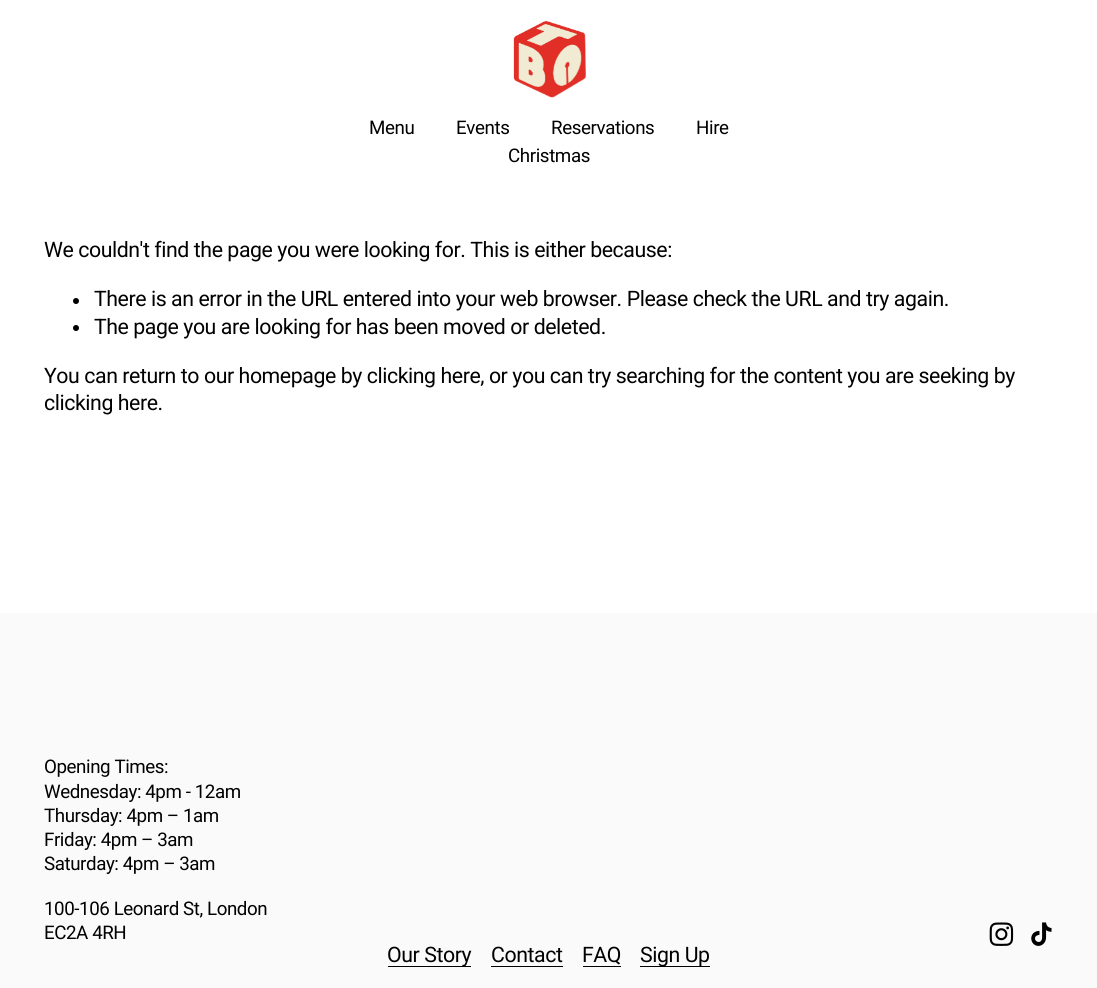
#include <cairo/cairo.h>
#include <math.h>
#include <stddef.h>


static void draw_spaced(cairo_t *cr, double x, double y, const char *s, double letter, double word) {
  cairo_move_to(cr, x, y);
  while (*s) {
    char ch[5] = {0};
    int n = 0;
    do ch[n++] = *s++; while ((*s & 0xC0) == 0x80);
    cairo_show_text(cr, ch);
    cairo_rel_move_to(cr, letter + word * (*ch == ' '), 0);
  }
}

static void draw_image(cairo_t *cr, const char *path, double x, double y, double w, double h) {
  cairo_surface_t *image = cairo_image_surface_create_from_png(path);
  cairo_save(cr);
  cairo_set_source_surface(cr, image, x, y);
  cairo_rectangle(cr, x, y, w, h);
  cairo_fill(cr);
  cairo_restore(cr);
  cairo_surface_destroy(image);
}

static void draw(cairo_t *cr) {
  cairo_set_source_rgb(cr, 1, 1, 1);
  cairo_paint(cr);
  draw_image(cr, "images/1.png", 513, 21, 73, 77);
  cairo_set_source_rgb(cr, 0, 0, 0);
  cairo_arc(cr, 76, 301, 3, 0, 2 * M_PI);
  cairo_fill(cr);
  cairo_arc(cr, 76, 328, 3, 0, 2 * M_PI);
  cairo_fill(cr);
  cairo_set_source_rgb(cr, 250 / 255.0, 250 / 255.0, 250 / 255.0);
  cairo_rectangle(cr, 0, 613, 1097, 375);
  cairo_fill(cr);
  draw_image(cr, "images/2.png", 989, 922, 25, 24);
  draw_image(cr, "images/3.png", 1031, 922, 21, 24);
  cairo_set_source_rgb(cr, 0, 0, 0);
  cairo_rectangle(cr, 388, 966, 83, 1);
  cairo_fill(cr);
  cairo_rectangle(cr, 491, 966, 72, 1);
  cairo_fill(cr);
  cairo_rectangle(cr, 583, 966, 38, 1);
  cairo_fill(cr);
  cairo_rectangle(cr, 640, 966, 70, 1);
  cairo_fill(cr);
  cairo_select_font_face(cr, "Roboto", CAIRO_FONT_SLANT_NORMAL, CAIRO_FONT_WEIGHT_NORMAL);
  cairo_set_font_size(cr, 18.75);
  draw_spaced(cr, 369, 134, "Menu", -0.4, 0);
  draw_spaced(cr, 456, 134, "Events", -0.4, 0);
  draw_spaced(cr, 551, 134, "Reservations", -0.4, 0);
  draw_spaced(cr, 696, 134, "Hire", -0.4, 0);
  draw_spaced(cr, 508, 162, "Christmas", -0.4, 0);
  cairo_set_font_size(cr, 21.3);
  draw_spaced(cr, 44, 257, "We couldn't find the page you were looking for. This is either because:", -0.43, 0);
  draw_spaced(cr, 94, 306, "There is an error in the URL entered into your web browser. Please check the URL and try again.", -0.43, 0);
  draw_spaced(cr, 94, 334, "The page you are looking for has been moved or deleted.", -0.43, 0);
  draw_spaced(cr, 44, 383, "You can return to our homepage by clicking here, or you can try searching for the content you are seeking by", -0.43, 0);
  draw_spaced(cr, 44, 410, "clicking here.", -0.43, 0);
  cairo_set_font_size(cr, 18.75);
  draw_spaced(cr, 44, 773, "Opening Times:", -0.43, 0);
  draw_spaced(cr, 44, 798, "Wednesday: 4pm - 12am", -0.43, 0);
  draw_spaced(cr, 44, 822, "Thursday: 4pm – 1am", -0.43, 0);
  draw_spaced(cr, 44, 846, "Friday: 4pm – 3am", -0.43, 0);
  draw_spaced(cr, 44, 870, "Saturday: 4pm – 3am", -0.43, 0);
  draw_spaced(cr, 44, 915, "100-106 Leonard St, London", -0.43, 0);
  draw_spaced(cr, 44, 939, "EC2A 4RH", -0.43, 0);
  cairo_set_font_size(cr, 21.3);
  draw_spaced(cr, 387, 962, "Our Story", -0.43, 0);
  draw_spaced(cr, 491, 962, "Contact", -0.43, 0);
  draw_spaced(cr, 582, 962, "FAQ", -0.43, 0);
  draw_spaced(cr, 640, 962, "Sign Up", -0.43, 0);
}

int main(void) {
  cairo_surface_t *surface = cairo_image_surface_create(CAIRO_FORMAT_RGB24, 1097, 988);
  cairo_t *cr = cairo_create(surface);
  cairo_font_options_t *options = cairo_font_options_create();
  cairo_font_options_set_hint_metrics(options, CAIRO_HINT_METRICS_OFF);
  cairo_font_options_set_hint_style(options, CAIRO_HINT_STYLE_NONE);
  cairo_set_font_options(cr, options);
  cairo_set_miter_limit(cr, 4);
  draw(cr);
  cairo_surface_write_to_png(surface, "out.png");
  cairo_font_options_destroy(options);
  cairo_destroy(cr);
  cairo_surface_destroy(surface);
  return 0;
}
